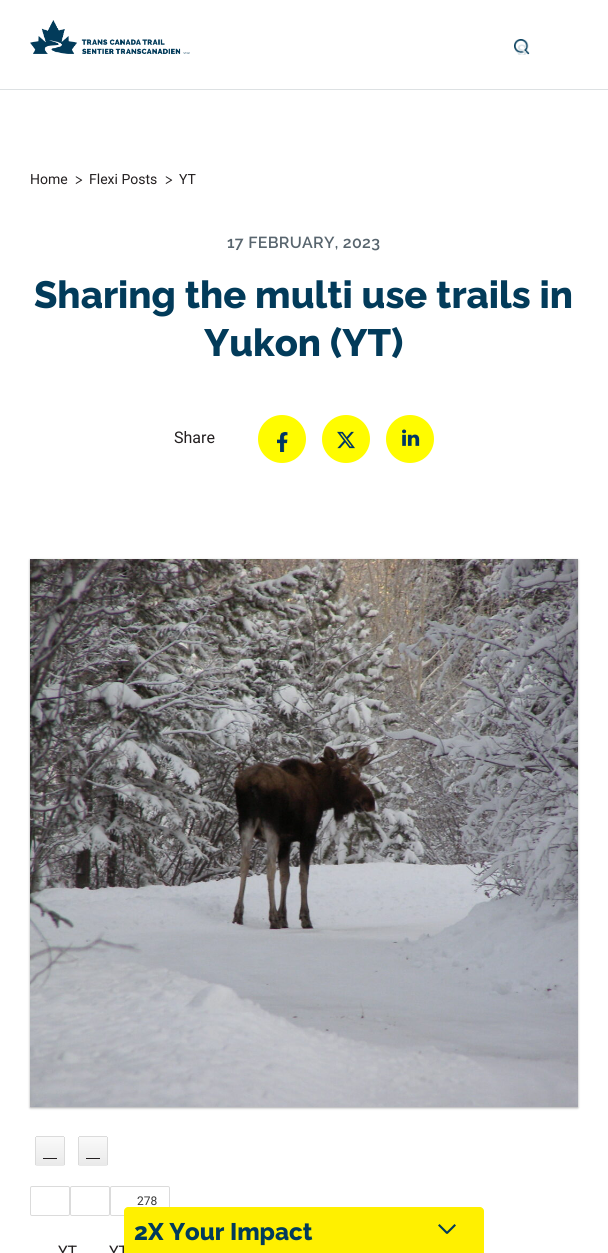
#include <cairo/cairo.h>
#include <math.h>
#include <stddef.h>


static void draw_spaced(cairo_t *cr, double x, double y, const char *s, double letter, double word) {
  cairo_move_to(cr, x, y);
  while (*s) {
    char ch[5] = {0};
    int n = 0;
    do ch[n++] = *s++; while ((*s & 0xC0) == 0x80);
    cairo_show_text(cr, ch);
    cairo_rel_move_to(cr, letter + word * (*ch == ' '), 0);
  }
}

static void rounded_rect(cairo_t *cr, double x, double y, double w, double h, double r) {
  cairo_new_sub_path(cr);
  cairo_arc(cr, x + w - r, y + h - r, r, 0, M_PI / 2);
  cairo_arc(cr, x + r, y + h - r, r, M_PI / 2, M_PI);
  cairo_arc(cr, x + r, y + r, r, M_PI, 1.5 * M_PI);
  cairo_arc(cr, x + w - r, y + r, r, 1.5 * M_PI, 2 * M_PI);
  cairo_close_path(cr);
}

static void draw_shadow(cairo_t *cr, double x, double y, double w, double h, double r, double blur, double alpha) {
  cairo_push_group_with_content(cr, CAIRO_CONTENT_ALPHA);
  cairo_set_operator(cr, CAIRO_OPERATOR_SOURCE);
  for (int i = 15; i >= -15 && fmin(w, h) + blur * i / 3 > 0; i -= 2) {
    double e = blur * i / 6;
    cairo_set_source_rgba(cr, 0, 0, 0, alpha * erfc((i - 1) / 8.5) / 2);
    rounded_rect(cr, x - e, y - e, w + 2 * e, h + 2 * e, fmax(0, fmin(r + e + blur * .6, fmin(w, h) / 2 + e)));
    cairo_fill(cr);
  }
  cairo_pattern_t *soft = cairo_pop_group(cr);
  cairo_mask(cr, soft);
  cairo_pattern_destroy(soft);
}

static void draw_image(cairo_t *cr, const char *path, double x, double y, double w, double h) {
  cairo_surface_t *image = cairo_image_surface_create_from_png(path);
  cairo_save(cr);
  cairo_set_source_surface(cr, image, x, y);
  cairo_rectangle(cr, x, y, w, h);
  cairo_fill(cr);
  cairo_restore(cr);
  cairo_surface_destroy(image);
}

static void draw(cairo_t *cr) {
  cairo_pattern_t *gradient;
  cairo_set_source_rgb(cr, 1, 1, 1);
  cairo_paint(cr);
  cairo_set_source_rgb(cr, 221 / 255.0, 225 / 255.0, 227 / 255.0);
  cairo_rectangle(cr, 0, 89, 608, 1);
  cairo_fill(cr);
  draw_image(cr, "images/1.png", 30, 20, 160, 34);
  draw_image(cr, "images/2.png", 514, 39, 16, 16);
  cairo_set_source_rgb(cr, 1, 252 / 255.0, 0);
  cairo_arc(cr, 282, 439, 24, 0, 2 * M_PI);
  cairo_fill(cr);
  draw_image(cr, "images/3.png", 277, 432, 11, 20);
  cairo_arc(cr, 346, 439, 24, 0, 2 * M_PI);
  cairo_fill(cr);
  draw_image(cr, "images/4.png", 337, 431, 18, 18);
  cairo_arc(cr, 410, 439, 24, 0, 2 * M_PI);
  cairo_fill(cr);
  draw_image(cr, "images/5.png", 402, 429, 18, 17);
  cairo_set_source_rgb(cr, 0, 0, 0);
  draw_shadow(cr, 30, 560, 548, 548, 0, 1, 0.24);
  draw_shadow(cr, 30, 560, 548, 548, 0, 1.5, 0.12);
  draw_image(cr, "images/6.png", 30, 559, 548, 548);
  cairo_save(cr);
  rounded_rect(cr, 35, 1136, 30, 30, 2);
  cairo_clip(cr);
  gradient = cairo_pattern_create_linear(50, 1137, 50, 1166);
  cairo_pattern_add_color_stop_rgba(gradient, 0.05, 249 / 255.0, 249 / 255.0, 249 / 255.0, 1);
  cairo_pattern_add_color_stop_rgba(gradient, 1, 233 / 255.0, 233 / 255.0, 233 / 255.0, 1);
  cairo_set_source(cr, gradient);
  cairo_pattern_destroy(gradient);
  cairo_new_path(cr);
  cairo_move_to(cr, 35, 1137);
  cairo_line_to(cr, 65, 1137);
  cairo_line_to(cr, 65, 1164);
  cairo_curve_to(cr, 65, 1165, 64, 1166, 63, 1166);
  cairo_line_to(cr, 37, 1166);
  cairo_curve_to(cr, 36, 1166, 35, 1165, 35, 1164);
  cairo_close_path(cr);
  cairo_fill(cr);
  cairo_restore(cr);
  cairo_set_source_rgb(cr, 219 / 255.0, 219 / 255.0, 219 / 255.0);
  cairo_rectangle(cr, 36, 1136, 28, 1);
  cairo_fill(cr);
  cairo_rectangle(cr, 64, 1137, 1, 28);
  cairo_fill(cr);
  cairo_rectangle(cr, 35, 1137, 1, 28);
  cairo_fill(cr);
  cairo_set_source_rgb(cr, 35 / 255.0, 31 / 255.0, 32 / 255.0);
  cairo_rectangle(cr, 43, 1158, 14, 1);
  cairo_fill(cr);
  cairo_save(cr);
  rounded_rect(cr, 78, 1136, 30, 30, 2);
  cairo_clip(cr);
  gradient = cairo_pattern_create_linear(93, 1137, 93, 1166);
  cairo_pattern_add_color_stop_rgba(gradient, 0.05, 249 / 255.0, 249 / 255.0, 249 / 255.0, 1);
  cairo_pattern_add_color_stop_rgba(gradient, 1, 233 / 255.0, 233 / 255.0, 233 / 255.0, 1);
  cairo_set_source(cr, gradient);
  cairo_pattern_destroy(gradient);
  cairo_new_path(cr);
  cairo_move_to(cr, 78, 1137);
  cairo_line_to(cr, 108, 1137);
  cairo_line_to(cr, 108, 1164);
  cairo_curve_to(cr, 108, 1165, 107, 1166, 106, 1166);
  cairo_line_to(cr, 80, 1166);
  cairo_curve_to(cr, 79, 1166, 78, 1165, 78, 1164);
  cairo_close_path(cr);
  cairo_fill(cr);
  cairo_restore(cr);
  cairo_set_source_rgb(cr, 219 / 255.0, 219 / 255.0, 219 / 255.0);
  cairo_rectangle(cr, 79, 1136, 28, 1);
  cairo_fill(cr);
  cairo_rectangle(cr, 107, 1137, 1, 28);
  cairo_fill(cr);
  cairo_rectangle(cr, 78, 1137, 1, 28);
  cairo_fill(cr);
  cairo_set_source_rgb(cr, 35 / 255.0, 31 / 255.0, 32 / 255.0);
  cairo_rectangle(cr, 86, 1158, 14, 1);
  cairo_fill(cr);
  rounded_rect(cr, 30.5, 1186.5, 39, 29, 1.5);
  cairo_set_source_rgb(cr, 219 / 255.0, 219 / 255.0, 219 / 255.0);
  cairo_set_line_width(cr, 1);
  cairo_stroke(cr);
  rounded_rect(cr, 70.5, 1186.5, 39, 29, 1.5);
  cairo_stroke(cr);
  rounded_rect(cr, 110.5, 1186.5, 59, 29, 1.5);
  cairo_stroke(cr);
  cairo_save(cr);
  rounded_rect(cr, 514, 39, 16, 16, 4);
  cairo_clip(cr);
  cairo_select_font_face(cr, "Roboto Medium", CAIRO_FONT_SLANT_NORMAL, CAIRO_FONT_WEIGHT_NORMAL);
  cairo_set_font_size(cr, 16);
  cairo_set_source_rgb(cr, 219 / 255.0, 227 / 255.0, 231 / 255.0);
  cairo_move_to(cr, 517, 56);
  cairo_show_text(cr, "S");
  cairo_restore(cr);
  cairo_select_font_face(cr, "Roboto", CAIRO_FONT_SLANT_NORMAL, CAIRO_FONT_WEIGHT_NORMAL);
  cairo_set_font_size(cr, 14);
  cairo_set_source_rgb(cr, 35 / 255.0, 31 / 255.0, 32 / 255.0);
  cairo_move_to(cr, 30, 184);
  cairo_show_text(cr, "Home");
  cairo_select_font_face(cr, "Raleway", CAIRO_FONT_SLANT_NORMAL, CAIRO_FONT_WEIGHT_NORMAL);
  cairo_set_font_size(cr, 15);
  cairo_move_to(cr, 75, 184);
  cairo_show_text(cr, ">");
  cairo_select_font_face(cr, "Roboto", CAIRO_FONT_SLANT_NORMAL, CAIRO_FONT_WEIGHT_NORMAL);
  cairo_set_font_size(cr, 14);
  cairo_move_to(cr, 89, 184);
  cairo_show_text(cr, "Flexi Posts");
  cairo_select_font_face(cr, "Raleway", CAIRO_FONT_SLANT_NORMAL, CAIRO_FONT_WEIGHT_NORMAL);
  cairo_set_font_size(cr, 15);
  cairo_move_to(cr, 165, 184);
  cairo_show_text(cr, ">");
  cairo_select_font_face(cr, "Roboto", CAIRO_FONT_SLANT_NORMAL, CAIRO_FONT_WEIGHT_NORMAL);
  cairo_set_font_size(cr, 14);
  cairo_move_to(cr, 179, 184);
  cairo_show_text(cr, "YT");
  cairo_select_font_face(cr, "Raleway SemiBold", CAIRO_FONT_SLANT_NORMAL, CAIRO_FONT_WEIGHT_NORMAL);
  cairo_set_font_size(cr, 16);
  cairo_set_source_rgb(cr, 88 / 255.0, 101 / 255.0, 110 / 255.0);
  draw_spaced(cr, 227, 248, "17 FEBRUARY, 2023", 0.3, 0);
  cairo_select_font_face(cr, "Raleway ExtraBold", CAIRO_FONT_SLANT_NORMAL, CAIRO_FONT_WEIGHT_NORMAL);
  cairo_set_font_size(cr, 38);
  cairo_set_source_rgb(cr, 2 / 255.0, 59 / 255.0, 90 / 255.0);
  cairo_move_to(cr, 34, 308);
  cairo_show_text(cr, "Sharing the multi use trails in");
  cairo_move_to(cr, 204, 356);
  cairo_show_text(cr, "Yukon (YT)");
  cairo_select_font_face(cr, "Roboto", CAIRO_FONT_SLANT_NORMAL, CAIRO_FONT_WEIGHT_NORMAL);
  cairo_set_font_size(cr, 16);
  cairo_set_source_rgb(cr, 35 / 255.0, 31 / 255.0, 32 / 255.0);
  cairo_move_to(cr, 174, 443);
  cairo_show_text(cr, "Share");
  cairo_set_font_size(cr, 12);
  cairo_set_source_rgb(cr, 54 / 255.0, 54 / 255.0, 54 / 255.0);
  cairo_move_to(cr, 137, 1205);
  cairo_show_text(cr, "278");
  cairo_set_font_size(cr, 16);
  cairo_set_source_rgb(cr, 35 / 255.0, 31 / 255.0, 32 / 255.0);
  cairo_move_to(cr, 58, 1257);
  cairo_show_text(cr, "YT");
  cairo_move_to(cr, 109, 1257);
  cairo_show_text(cr, "YT");
  cairo_set_source_rgb(cr, 1, 240 / 255.0, 0);
  cairo_new_path(cr);
  cairo_move_to(cr, 128, 1207);
  cairo_line_to(cr, 480, 1207);
  cairo_curve_to(cr, 482, 1207, 484, 1209, 484, 1211);
  cairo_line_to(cr, 484, 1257);
  cairo_line_to(cr, 124, 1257);
  cairo_line_to(cr, 124, 1211);
  cairo_curve_to(cr, 124, 1209, 126, 1207, 128, 1207);
  cairo_close_path(cr);
  cairo_fill(cr);
  cairo_select_font_face(cr, "Raleway ExtraBold", CAIRO_FONT_SLANT_NORMAL, CAIRO_FONT_WEIGHT_NORMAL);
  cairo_set_font_size(cr, 24);
  cairo_set_source_rgb(cr, 2 / 255.0, 59 / 255.0, 90 / 255.0);
  cairo_move_to(cr, 134, 1240);
  cairo_show_text(cr, "2X Your Impact");
  cairo_new_path(cr);
  cairo_move_to(cr, 439.5, 1224);
  cairo_line_to(cr, 448, 1232.5);
  cairo_line_to(cr, 446.5, 1234);
  cairo_line_to(cr, 438, 1225.5);
  cairo_close_path(cr);
  cairo_fill(cr);
  cairo_new_path(cr);
  cairo_move_to(cr, 446, 1232.5);
  cairo_line_to(cr, 454.5, 1224);
  cairo_line_to(cr, 456, 1225.5);
  cairo_line_to(cr, 447.5, 1234);
  cairo_close_path(cr);
  cairo_fill(cr);
}

int main(void) {
  cairo_surface_t *surface = cairo_image_surface_create(CAIRO_FORMAT_RGB24, 608, 1253);
  cairo_t *cr = cairo_create(surface);
  cairo_font_options_t *options = cairo_font_options_create();
  cairo_font_options_set_hint_metrics(options, CAIRO_HINT_METRICS_OFF);
  cairo_font_options_set_hint_style(options, CAIRO_HINT_STYLE_NONE);
  cairo_set_font_options(cr, options);
  cairo_set_miter_limit(cr, 4);
  draw(cr);
  cairo_surface_write_to_png(surface, "out.png");
  cairo_font_options_destroy(options);
  cairo_destroy(cr);
  cairo_surface_destroy(surface);
  return 0;
}
